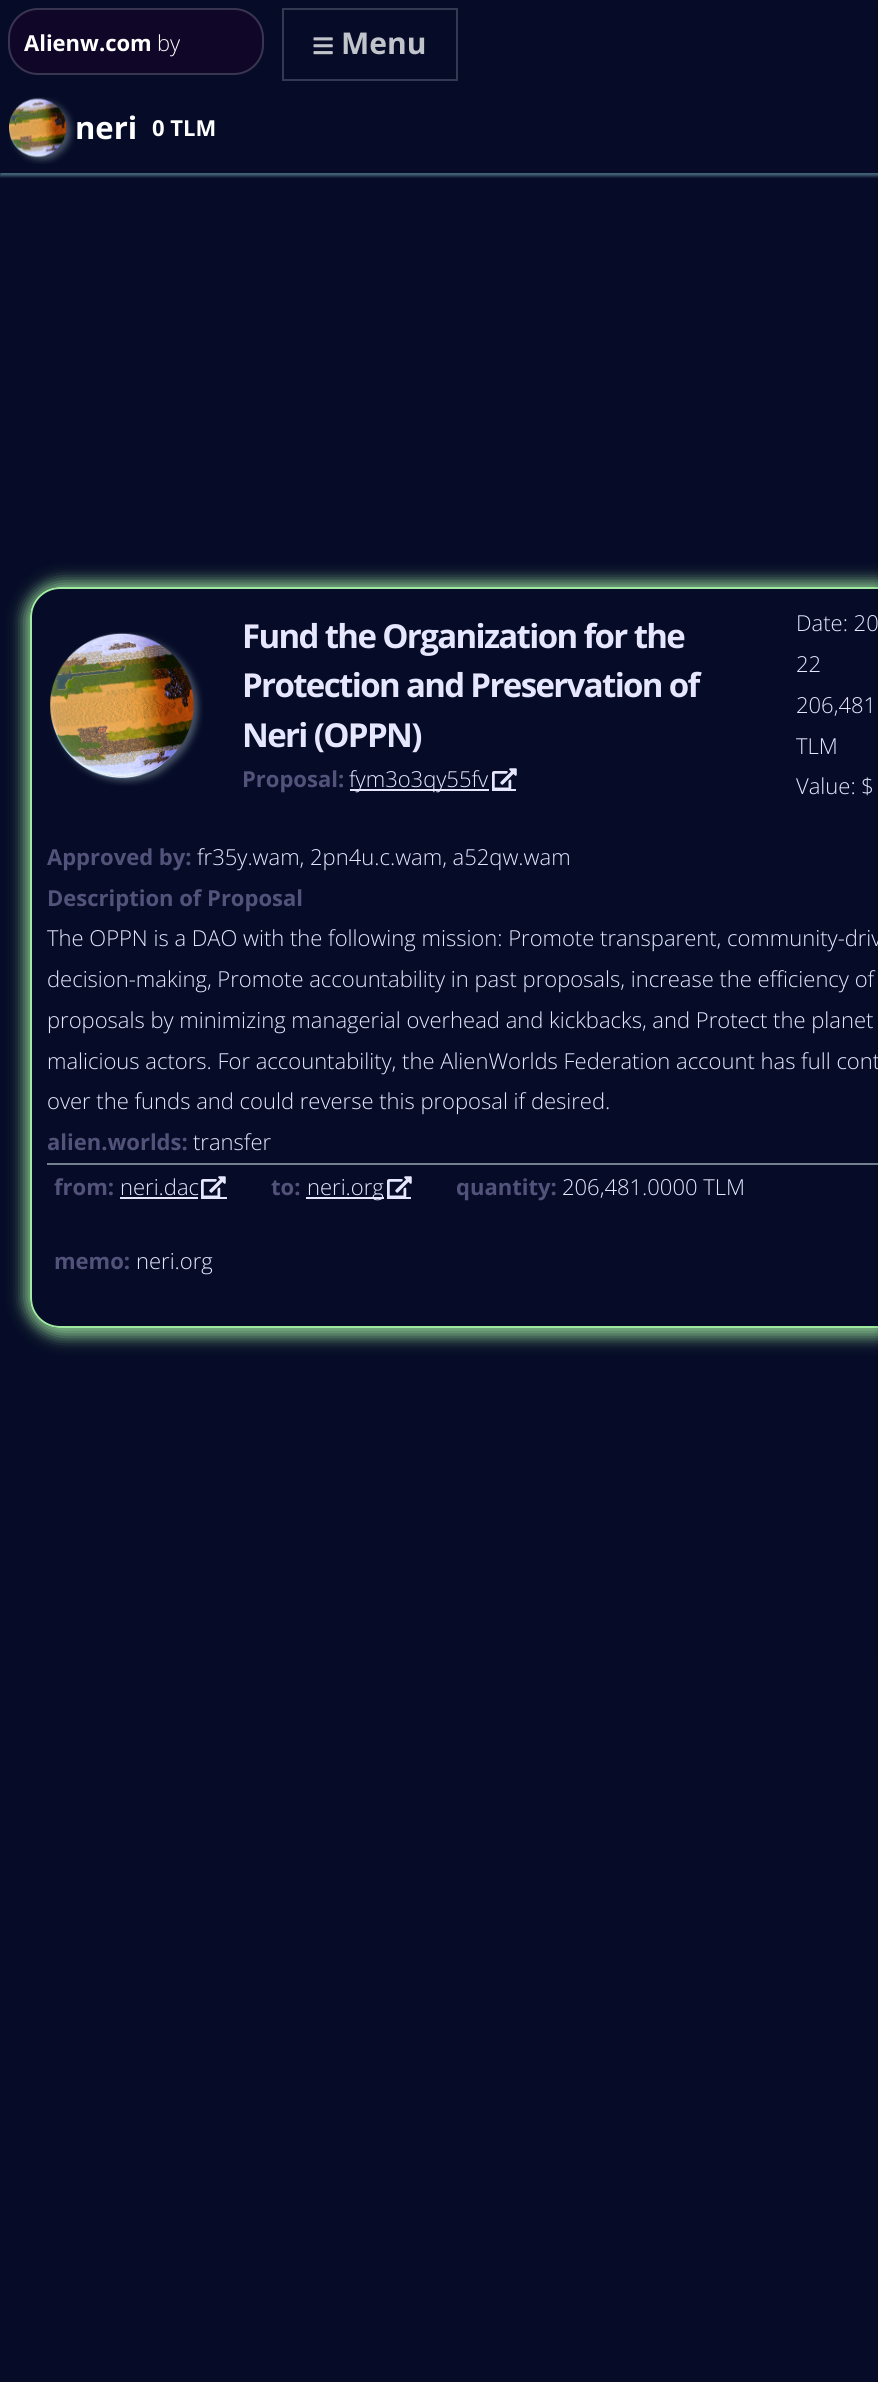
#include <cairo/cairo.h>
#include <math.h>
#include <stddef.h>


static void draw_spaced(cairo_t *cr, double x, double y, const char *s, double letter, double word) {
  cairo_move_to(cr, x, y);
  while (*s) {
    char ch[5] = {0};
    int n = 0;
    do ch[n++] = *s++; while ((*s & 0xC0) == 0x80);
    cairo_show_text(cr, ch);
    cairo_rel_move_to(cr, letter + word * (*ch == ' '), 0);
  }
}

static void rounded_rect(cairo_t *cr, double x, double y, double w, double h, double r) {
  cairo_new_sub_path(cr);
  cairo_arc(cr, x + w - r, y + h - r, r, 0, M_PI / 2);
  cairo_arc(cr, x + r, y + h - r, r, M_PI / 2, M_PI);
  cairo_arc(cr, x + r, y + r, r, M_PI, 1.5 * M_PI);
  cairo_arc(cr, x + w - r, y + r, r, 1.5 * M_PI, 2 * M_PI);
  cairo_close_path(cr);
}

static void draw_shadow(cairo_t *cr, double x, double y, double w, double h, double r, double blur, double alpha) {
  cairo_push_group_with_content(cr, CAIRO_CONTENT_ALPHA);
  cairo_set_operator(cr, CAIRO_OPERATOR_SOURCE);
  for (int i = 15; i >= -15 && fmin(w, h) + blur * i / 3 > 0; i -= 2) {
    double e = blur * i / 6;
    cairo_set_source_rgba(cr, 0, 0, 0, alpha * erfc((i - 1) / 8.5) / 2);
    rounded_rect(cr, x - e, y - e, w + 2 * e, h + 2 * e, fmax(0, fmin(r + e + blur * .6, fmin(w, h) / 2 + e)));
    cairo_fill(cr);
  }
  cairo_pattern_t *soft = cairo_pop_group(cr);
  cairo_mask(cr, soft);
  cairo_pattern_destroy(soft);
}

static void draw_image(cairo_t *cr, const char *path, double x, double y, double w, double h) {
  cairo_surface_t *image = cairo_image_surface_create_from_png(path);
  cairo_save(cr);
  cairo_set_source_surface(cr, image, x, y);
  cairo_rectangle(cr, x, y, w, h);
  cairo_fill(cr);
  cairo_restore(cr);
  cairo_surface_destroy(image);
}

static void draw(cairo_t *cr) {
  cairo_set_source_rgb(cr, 6 / 255.0, 12 / 255.0, 39 / 255.0);
  cairo_paint(cr);
  cairo_save(cr);
  cairo_rectangle(cr, 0, 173, 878, 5);
  cairo_clip(cr);
  cairo_set_source_rgb(cr, 165 / 255.0, 236 / 255.0, 248 / 255.0);
  draw_shadow(cr, 0, 0, 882, 176, 0, 1.5, 0.4);
  cairo_restore(cr);
  cairo_set_source_rgb(cr, 16 / 255.0, 6 / 255.0, 39 / 255.0);
  rounded_rect(cr, 8, 8, 256, 67, 30);
  cairo_fill(cr);
  rounded_rect(cr, 9, 9, 254, 65, 29);
  cairo_set_source_rgba(cr, 221 / 255.0, 244 / 255.0, 248 / 255.0, 0.2);
  cairo_stroke(cr);
  cairo_rectangle(cr, 283, 9, 174, 71);
  cairo_set_source_rgb(cr, 49 / 255.0, 58 / 255.0, 81 / 255.0);
  cairo_stroke(cr);
  draw_image(cr, "images/1.png", 313, 37, 20, 18);
  cairo_set_source_rgb(cr, 6 / 255.0, 12 / 255.0, 39 / 255.0);
  cairo_rectangle(cr, 0, 172, 878, 1);
  cairo_fill(cr);
  cairo_save(cr);
  cairo_set_fill_rule(cr, CAIRO_FILL_RULE_EVEN_ODD);
  cairo_new_path(cr);
  cairo_move_to(cr, 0, 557);
  cairo_line_to(cr, 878, 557);
  cairo_line_to(cr, 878, 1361);
  cairo_line_to(cr, 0, 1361);
  cairo_close_path(cr);
  cairo_move_to(cr, 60, 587);
  cairo_line_to(cr, 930, 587);
  cairo_curve_to(cr, 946.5, 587, 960, 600.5, 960, 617);
  cairo_line_to(cr, 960, 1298);
  cairo_curve_to(cr, 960, 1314.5, 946.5, 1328, 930, 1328);
  cairo_line_to(cr, 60, 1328);
  cairo_curve_to(cr, 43.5, 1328, 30, 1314.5, 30, 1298);
  cairo_line_to(cr, 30, 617);
  cairo_curve_to(cr, 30, 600.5, 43.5, 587, 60, 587);
  cairo_close_path(cr);
  cairo_clip(cr);
  cairo_set_source_rgb(cr, 160 / 255.0, 235 / 255.0, 160 / 255.0);
  draw_shadow(cr, 24, 581, 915, 756, 38, 7.5, 0.8);
  cairo_restore(cr);
  rounded_rect(cr, 31, 588, 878, 739, 29);
  cairo_set_source_rgb(cr, 160 / 255.0, 235 / 255.0, 160 / 255.0);
  cairo_stroke(cr);
  cairo_set_source_rgb(cr, 114 / 255.0, 128 / 255.0, 144 / 255.0);
  cairo_rectangle(cr, 47, 1163, 831, 2);
  cairo_fill(cr);
  cairo_set_source_rgb(cr, 0, 0, 0);
  draw_shadow(cr, 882, 3, 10, 1658, 0, 4.5, 0.4);
  draw_image(cr, "images/2.png", 9, 97, 66, 67);
  draw_image(cr, "images/3.png", 49, 632, 154, 154);
  cairo_set_source_rgb(cr, 230 / 255.0, 230 / 255.0, 1);
  cairo_rectangle(cr, 350, 789, 139, 2);
  cairo_fill(cr);
  cairo_rectangle(cr, 492, 789, 24, 2);
  cairo_fill(cr);
  draw_image(cr, "images/4.png", 492, 768, 25, 21);
  cairo_rectangle(cr, 120, 1197, 78, 2);
  cairo_fill(cr);
  cairo_rectangle(cr, 201, 1197, 26, 2);
  cairo_fill(cr);
  draw_image(cr, "images/4.png", 201, 1176, 25, 21);
  cairo_rectangle(cr, 306, 1197, 78, 2);
  cairo_fill(cr);
  cairo_rectangle(cr, 387, 1197, 24, 2);
  cairo_fill(cr);
  draw_image(cr, "images/4.png", 387, 1176, 25, 21);
  cairo_select_font_face(cr, "Open Sans", CAIRO_FONT_SLANT_NORMAL, CAIRO_FONT_WEIGHT_BOLD);
  cairo_set_font_size(cr, 22);
  cairo_set_source_rgb(cr, 1, 1, 1);
  cairo_move_to(cr, 24, 51);
  cairo_show_text(cr, "Alienw.com");
  cairo_select_font_face(cr, "Open Sans Light", CAIRO_FONT_SLANT_NORMAL, CAIRO_FONT_WEIGHT_NORMAL);
  cairo_move_to(cr, 157, 51);
  cairo_show_text(cr, "by");
  cairo_select_font_face(cr, "Open Sans", CAIRO_FONT_SLANT_NORMAL, CAIRO_FONT_WEIGHT_BOLD);
  cairo_set_font_size(cr, 30);
  cairo_set_source_rgb(cr, 193 / 255.0, 197 / 255.0, 203 / 255.0);
  cairo_move_to(cr, 341, 54);
  cairo_show_text(cr, "Menu");
  cairo_set_font_size(cr, 31);
  cairo_set_source_rgb(cr, 1, 1, 1);
  cairo_move_to(cr, 75, 139);
  cairo_show_text(cr, "neri");
  cairo_set_font_size(cr, 22);
  cairo_move_to(cr, 152, 136);
  cairo_show_text(cr, "0 TLM");
  cairo_set_font_size(cr, 33);
  cairo_set_source_rgb(cr, 230 / 255.0, 230 / 255.0, 1);
  draw_spaced(cr, 242, 648, "Fund the Organization for the", -1.65, 0);
  draw_spaced(cr, 242, 697, "Protection and Preservation of", -1.65, 0);
  draw_spaced(cr, 242, 747, "Neri (OPPN)", -1.65, 0);
  cairo_set_font_size(cr, 22);
  cairo_set_source_rgb(cr, 82 / 255.0, 82 / 255.0, 122 / 255.0);
  cairo_move_to(cr, 242, 787);
  cairo_show_text(cr, "Proposal:");
  cairo_select_font_face(cr, "Open Sans Light", CAIRO_FONT_SLANT_NORMAL, CAIRO_FONT_WEIGHT_NORMAL);
  cairo_set_source_rgb(cr, 230 / 255.0, 230 / 255.0, 1);
  cairo_move_to(cr, 349, 787);
  cairo_show_text(cr, "fym3o3qy55fv");
  cairo_move_to(cr, 796, 631);
  cairo_show_text(cr, "Date: 20");
  cairo_move_to(cr, 796, 672);
  cairo_show_text(cr, "22");
  cairo_move_to(cr, 796, 713);
  cairo_show_text(cr, "206,481");
  cairo_move_to(cr, 796, 754);
  cairo_show_text(cr, "TLM");
  cairo_move_to(cr, 796, 794);
  cairo_show_text(cr, "Value: $");
  cairo_select_font_face(cr, "Open Sans", CAIRO_FONT_SLANT_NORMAL, CAIRO_FONT_WEIGHT_BOLD);
  cairo_set_source_rgb(cr, 82 / 255.0, 82 / 255.0, 122 / 255.0);
  cairo_move_to(cr, 47, 865);
  cairo_show_text(cr, "Approved by:");
  cairo_select_font_face(cr, "Open Sans Light", CAIRO_FONT_SLANT_NORMAL, CAIRO_FONT_WEIGHT_NORMAL);
  cairo_set_source_rgb(cr, 230 / 255.0, 230 / 255.0, 1);
  cairo_move_to(cr, 197, 865);
  cairo_show_text(cr, "fr35y.wam, 2pn4u.c.wam, a52qw.wam");
  cairo_select_font_face(cr, "Open Sans", CAIRO_FONT_SLANT_NORMAL, CAIRO_FONT_WEIGHT_BOLD);
  cairo_set_source_rgb(cr, 82 / 255.0, 82 / 255.0, 122 / 255.0);
  cairo_move_to(cr, 47, 906);
  cairo_show_text(cr, "Description of Proposal");
  cairo_select_font_face(cr, "Open Sans Light", CAIRO_FONT_SLANT_NORMAL, CAIRO_FONT_WEIGHT_NORMAL);
  cairo_set_source_rgb(cr, 230 / 255.0, 230 / 255.0, 1);
  cairo_move_to(cr, 47, 946);
  cairo_show_text(cr, "The OPPN is a DAO with the following mission: Promote transparent, community-driv");
  cairo_move_to(cr, 47, 987);
  cairo_show_text(cr, "decision-making, Promote accountability in past proposals, increase the efficiency of");
  cairo_move_to(cr, 47, 1028);
  cairo_show_text(cr, "proposals by minimizing managerial overhead and kickbacks, and Protect the planet");
  cairo_move_to(cr, 47, 1069);
  cairo_show_text(cr, "malicious actors. For accountability, the AlienWorlds Federation account has full cont");
  cairo_move_to(cr, 47, 1109);
  cairo_show_text(cr, "over the funds and could reverse this proposal if desired.");
  cairo_select_font_face(cr, "Open Sans", CAIRO_FONT_SLANT_NORMAL, CAIRO_FONT_WEIGHT_BOLD);
  cairo_set_source_rgb(cr, 82 / 255.0, 82 / 255.0, 122 / 255.0);
  cairo_move_to(cr, 47, 1150);
  cairo_show_text(cr, "alien.worlds:");
  cairo_select_font_face(cr, "Open Sans Light", CAIRO_FONT_SLANT_NORMAL, CAIRO_FONT_WEIGHT_NORMAL);
  cairo_set_source_rgb(cr, 230 / 255.0, 230 / 255.0, 1);
  cairo_move_to(cr, 193, 1150);
  cairo_show_text(cr, "transfer");
  cairo_select_font_face(cr, "Open Sans", CAIRO_FONT_SLANT_NORMAL, CAIRO_FONT_WEIGHT_BOLD);
  cairo_set_source_rgb(cr, 82 / 255.0, 82 / 255.0, 122 / 255.0);
  cairo_move_to(cr, 54, 1195);
  cairo_show_text(cr, "from:");
  cairo_select_font_face(cr, "Open Sans Light", CAIRO_FONT_SLANT_NORMAL, CAIRO_FONT_WEIGHT_NORMAL);
  cairo_set_source_rgb(cr, 230 / 255.0, 230 / 255.0, 1);
  cairo_move_to(cr, 120, 1195);
  cairo_show_text(cr, "neri.dac");
  cairo_select_font_face(cr, "Open Sans", CAIRO_FONT_SLANT_NORMAL, CAIRO_FONT_WEIGHT_BOLD);
  cairo_set_source_rgb(cr, 82 / 255.0, 82 / 255.0, 122 / 255.0);
  cairo_move_to(cr, 271, 1195);
  cairo_show_text(cr, "to:");
  cairo_select_font_face(cr, "Open Sans Light", CAIRO_FONT_SLANT_NORMAL, CAIRO_FONT_WEIGHT_NORMAL);
  cairo_set_source_rgb(cr, 230 / 255.0, 230 / 255.0, 1);
  cairo_move_to(cr, 307, 1195);
  cairo_show_text(cr, "neri.org");
  cairo_select_font_face(cr, "Open Sans", CAIRO_FONT_SLANT_NORMAL, CAIRO_FONT_WEIGHT_BOLD);
  cairo_set_source_rgb(cr, 82 / 255.0, 82 / 255.0, 122 / 255.0);
  cairo_move_to(cr, 456, 1195);
  cairo_show_text(cr, "quantity:");
  cairo_select_font_face(cr, "Open Sans Light", CAIRO_FONT_SLANT_NORMAL, CAIRO_FONT_WEIGHT_NORMAL);
  cairo_set_source_rgb(cr, 230 / 255.0, 230 / 255.0, 1);
  cairo_move_to(cr, 562, 1195);
  cairo_show_text(cr, "206,481.0000 TLM");
  cairo_select_font_face(cr, "Open Sans", CAIRO_FONT_SLANT_NORMAL, CAIRO_FONT_WEIGHT_BOLD);
  cairo_set_source_rgb(cr, 82 / 255.0, 82 / 255.0, 122 / 255.0);
  cairo_move_to(cr, 54, 1269);
  cairo_show_text(cr, "memo:");
  cairo_select_font_face(cr, "Open Sans Light", CAIRO_FONT_SLANT_NORMAL, CAIRO_FONT_WEIGHT_NORMAL);
  cairo_set_source_rgb(cr, 230 / 255.0, 230 / 255.0, 1);
  cairo_move_to(cr, 136, 1269);
  cairo_show_text(cr, "neri.org");
}

int main(void) {
  cairo_surface_t *surface = cairo_image_surface_create(CAIRO_FORMAT_RGB24, 878, 2382);
  cairo_t *cr = cairo_create(surface);
  cairo_font_options_t *options = cairo_font_options_create();
  cairo_font_options_set_hint_metrics(options, CAIRO_HINT_METRICS_OFF);
  cairo_font_options_set_hint_style(options, CAIRO_HINT_STYLE_NONE);
  cairo_set_font_options(cr, options);
  cairo_set_miter_limit(cr, 4);
  draw(cr);
  cairo_surface_write_to_png(surface, "out.png");
  cairo_font_options_destroy(options);
  cairo_destroy(cr);
  cairo_surface_destroy(surface);
  return 0;
}
